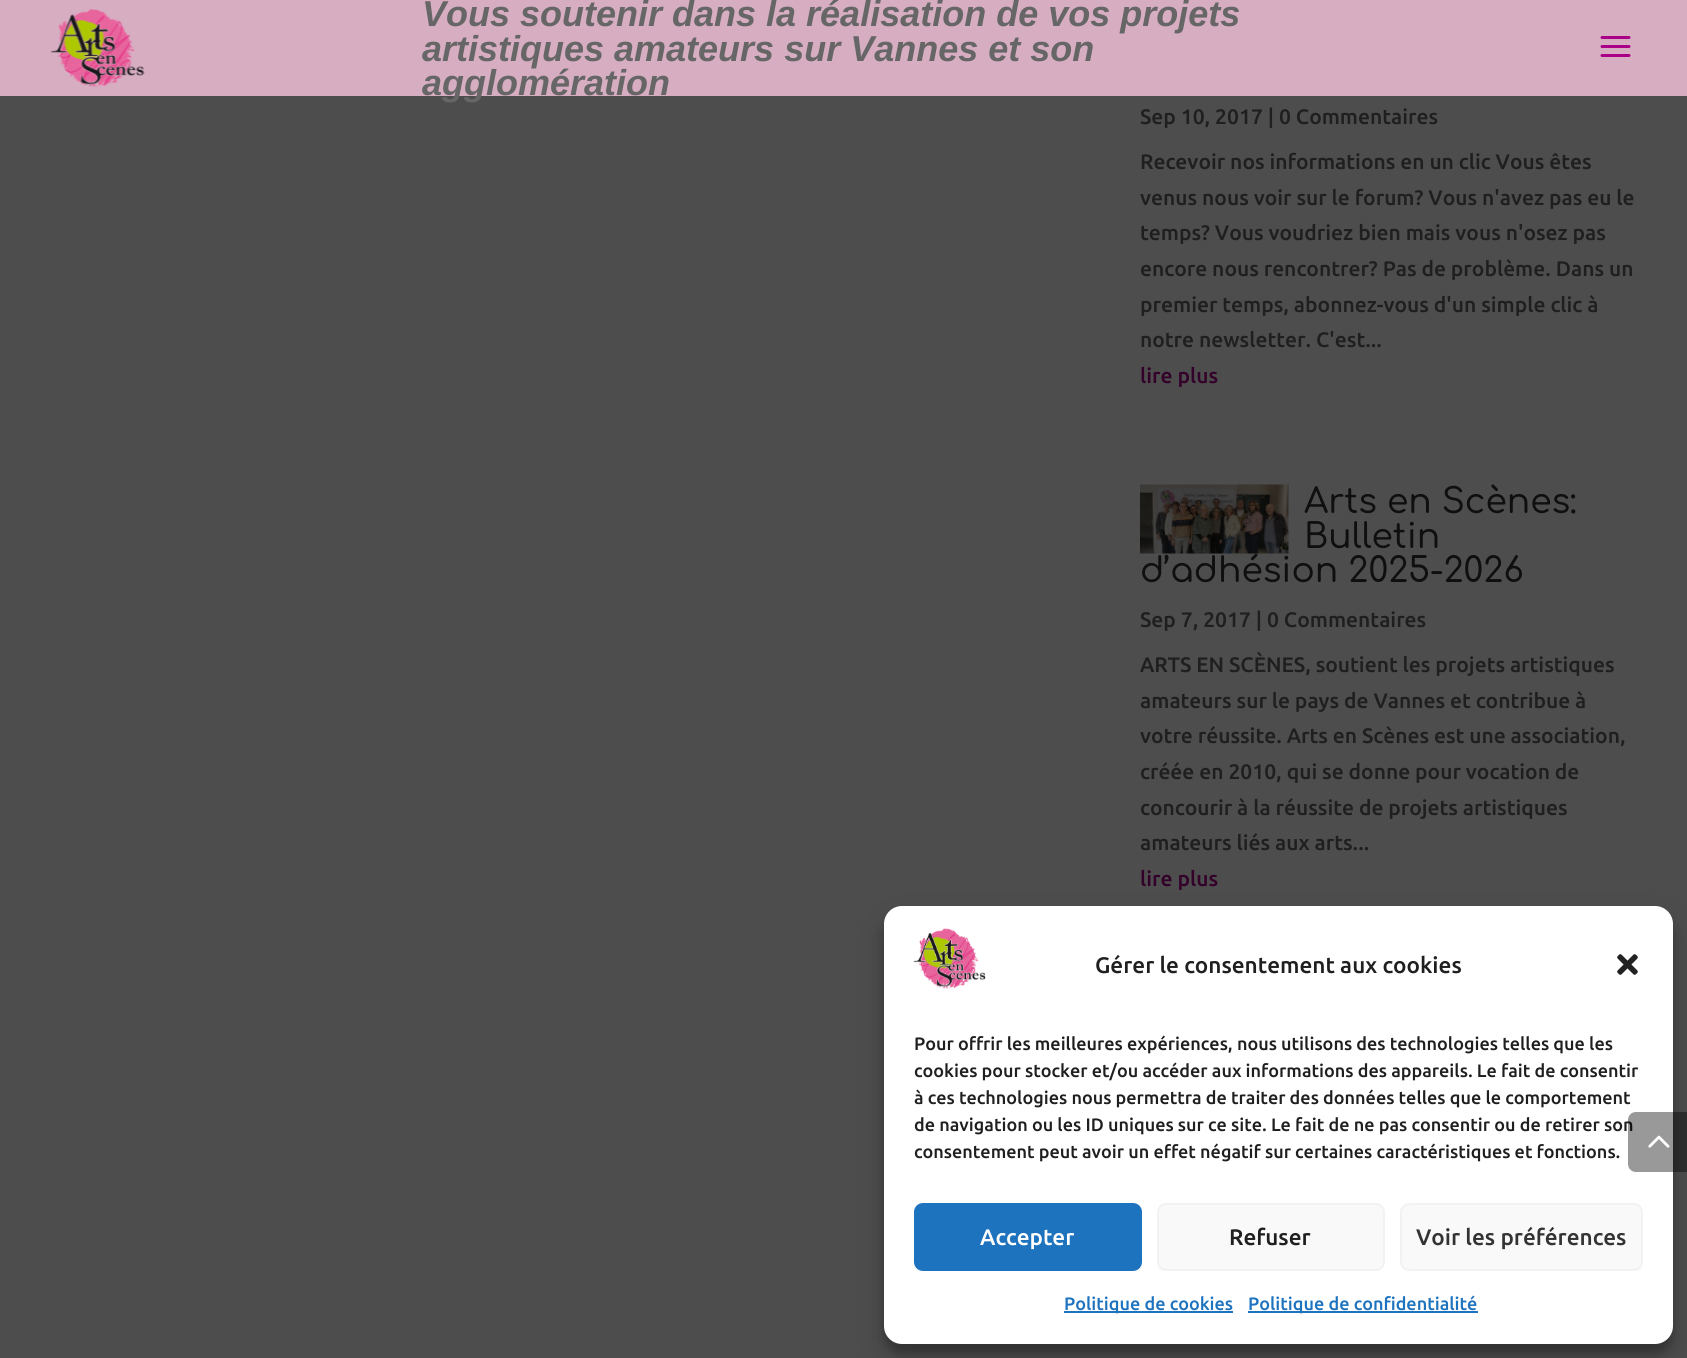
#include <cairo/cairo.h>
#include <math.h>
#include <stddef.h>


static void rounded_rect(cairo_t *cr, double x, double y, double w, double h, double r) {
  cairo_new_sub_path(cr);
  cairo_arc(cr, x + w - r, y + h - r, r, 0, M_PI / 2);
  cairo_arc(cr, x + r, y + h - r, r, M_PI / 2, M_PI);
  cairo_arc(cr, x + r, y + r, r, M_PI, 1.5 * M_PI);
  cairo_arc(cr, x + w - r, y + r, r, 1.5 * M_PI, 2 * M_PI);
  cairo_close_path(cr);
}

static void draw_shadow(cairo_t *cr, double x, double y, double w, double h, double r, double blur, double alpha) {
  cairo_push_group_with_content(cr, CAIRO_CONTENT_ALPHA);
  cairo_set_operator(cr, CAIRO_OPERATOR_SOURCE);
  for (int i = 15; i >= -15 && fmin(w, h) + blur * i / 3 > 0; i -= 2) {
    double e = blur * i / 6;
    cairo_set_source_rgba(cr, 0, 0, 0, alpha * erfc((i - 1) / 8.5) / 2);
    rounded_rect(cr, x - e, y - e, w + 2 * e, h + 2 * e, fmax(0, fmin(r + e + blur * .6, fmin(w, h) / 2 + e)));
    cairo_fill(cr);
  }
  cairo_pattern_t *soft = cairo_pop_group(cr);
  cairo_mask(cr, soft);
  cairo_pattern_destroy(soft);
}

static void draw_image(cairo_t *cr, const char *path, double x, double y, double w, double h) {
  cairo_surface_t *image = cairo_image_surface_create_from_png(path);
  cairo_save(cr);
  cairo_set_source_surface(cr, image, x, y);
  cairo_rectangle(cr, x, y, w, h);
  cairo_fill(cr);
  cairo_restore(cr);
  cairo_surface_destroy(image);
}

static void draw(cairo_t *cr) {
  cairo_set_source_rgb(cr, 77 / 255.0, 77 / 255.0, 77 / 255.0);
  cairo_paint(cr);
  cairo_set_source_rgb(cr, 215 / 255.0, 173 / 255.0, 194 / 255.0);
  cairo_rectangle(cr, 0, 0, 1687, 96);
  cairo_fill(cr);
  draw_image(cr, "images/1.png", 50, 9, 95, 78);
  draw_image(cr, "images/2.png", 1600, 36, 31, 21);
  cairo_set_source_rgb(cr, 0, 0, 0);
  draw_shadow(cr, 884, 915, 789, 438, 18, 4.5, 0.23);
  draw_shadow(cr, 884, 921, 789, 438, 18, 15, 0.19);
  cairo_set_source_rgb(cr, 1, 1, 1);
  rounded_rect(cr, 884, 906, 789, 438, 18);
  cairo_fill(cr);
  draw_image(cr, "images/5.png", 913, 928, 73, 61);
  draw_image(cr, "images/6.png", 1617, 954, 21, 21);
  cairo_set_source_rgb(cr, 30 / 255.0, 115 / 255.0, 190 / 255.0);
  rounded_rect(cr, 915, 1204, 226, 66, 8);
  cairo_fill_preserve(cr);
  cairo_stroke(cr);
  cairo_set_source_rgb(cr, 249 / 255.0, 249 / 255.0, 249 / 255.0);
  rounded_rect(cr, 1158, 1204, 226, 66, 8);
  cairo_fill_preserve(cr);
  cairo_set_source_rgb(cr, 242 / 255.0, 242 / 255.0, 242 / 255.0);
  cairo_stroke(cr);
  cairo_set_source_rgb(cr, 249 / 255.0, 249 / 255.0, 249 / 255.0);
  rounded_rect(cr, 1401, 1204, 241, 66, 8);
  cairo_fill_preserve(cr);
  cairo_set_source_rgb(cr, 242 / 255.0, 242 / 255.0, 242 / 255.0);
  cairo_stroke(cr);
  cairo_set_source_rgb(cr, 30 / 255.0, 115 / 255.0, 190 / 255.0);
  cairo_rectangle(cr, 1064, 1311, 169, 2);
  cairo_fill(cr);
  cairo_rectangle(cr, 1248, 1311, 230, 2);
  cairo_fill(cr);
  cairo_select_font_face(cr, "Arimo", CAIRO_FONT_SLANT_ITALIC, CAIRO_FONT_WEIGHT_BOLD);
  cairo_set_font_size(cr, 36);
  cairo_set_source_rgb(cr, 102 / 255.0, 102 / 255.0, 102 / 255.0);
  cairo_move_to(cr, 422, 26);
  cairo_show_text(cr, "Vous soutenir dans la réalisation de vos projets");
  cairo_move_to(cr, 422, 61);
  cairo_show_text(cr, "artistiques amateurs sur Vannes et son");
  cairo_move_to(cr, 422, 95);
  cairo_show_text(cr, "agglomération");
  cairo_select_font_face(cr, "Ubuntu Medium", CAIRO_FONT_SLANT_NORMAL, CAIRO_FONT_WEIGHT_NORMAL);
  cairo_set_font_size(cr, 21);
  cairo_set_source_rgb(cr, 31 / 255.0, 31 / 255.0, 31 / 255.0);
  cairo_move_to(cr, 1140, 124);
  cairo_show_text(cr, "Sep 10, 2017 | 0 Commentaires");
  cairo_move_to(cr, 1140, 169);
  cairo_show_text(cr, "Recevoir nos informations en un clic Vous êtes");
  cairo_move_to(cr, 1140, 205);
  cairo_show_text(cr, "venus nous voir sur le forum? Vous n'avez pas eu le");
  cairo_move_to(cr, 1140, 240);
  cairo_show_text(cr, "temps? Vous voudriez bien mais vous n'osez pas");
  cairo_move_to(cr, 1140, 276);
  cairo_show_text(cr, "encore nous rencontrer? Pas de problème. Dans un");
  cairo_move_to(cr, 1140, 312);
  cairo_show_text(cr, "premier temps, abonnez-vous d'un simple clic à");
  cairo_move_to(cr, 1140, 347);
  cairo_show_text(cr, "notre newsletter. C'est...");
  cairo_set_source_rgb(cr, 51 / 255.0, 0, 41 / 255.0);
  cairo_move_to(cr, 1140, 383);
  cairo_show_text(cr, "lire plus");
  cairo_select_font_face(cr, "Comfortaa Medium", CAIRO_FONT_SLANT_NORMAL, CAIRO_FONT_WEIGHT_NORMAL);
  cairo_set_font_size(cr, 34.5);
  cairo_set_source_rgb(cr, 15 / 255.0, 15 / 255.0, 15 / 255.0);
  cairo_move_to(cr, 1304, 513);
  cairo_show_text(cr, "Arts en Scènes:");
  cairo_move_to(cr, 1304, 548);
  cairo_show_text(cr, "Bulletin");
  cairo_move_to(cr, 1140, 582);
  cairo_show_text(cr, "d’adhésion 2025-2026");
  draw_image(cr, "images/3.png", 1140, 484, 149, 70);
  cairo_select_font_face(cr, "Ubuntu Medium", CAIRO_FONT_SLANT_NORMAL, CAIRO_FONT_WEIGHT_NORMAL);
  cairo_set_font_size(cr, 21);
  cairo_set_source_rgb(cr, 31 / 255.0, 31 / 255.0, 31 / 255.0);
  cairo_move_to(cr, 1140, 627);
  cairo_show_text(cr, "Sep 7, 2017 | 0 Commentaires");
  cairo_move_to(cr, 1140, 672);
  cairo_show_text(cr, "ARTS EN SCÈNES, soutient les projets artistiques");
  cairo_move_to(cr, 1140, 708);
  cairo_show_text(cr, "amateurs sur le pays de Vannes et contribue à");
  cairo_move_to(cr, 1140, 743);
  cairo_show_text(cr, "votre réussite. Arts en Scènes est une association,");
  cairo_move_to(cr, 1140, 779);
  cairo_show_text(cr, "créée en 2010, qui se donne pour vocation de");
  cairo_move_to(cr, 1140, 815);
  cairo_show_text(cr, "concourir à la réussite de projets artistiques");
  cairo_move_to(cr, 1140, 850);
  cairo_show_text(cr, "amateurs liés aux arts...");
  cairo_set_source_rgb(cr, 51 / 255.0, 0, 41 / 255.0);
  cairo_move_to(cr, 1140, 886);
  cairo_show_text(cr, "lire plus");
  cairo_set_font_size(cr, 22.5);
  cairo_set_source_rgb(cr, 31 / 255.0, 31 / 255.0, 31 / 255.0);
  cairo_move_to(cr, 1095, 973);
  cairo_show_text(cr, "Gérer le consentement aux cookies");
  cairo_set_font_size(cr, 18);
  cairo_move_to(cr, 914, 1050);
  cairo_show_text(cr, "Pour offrir les meilleures expériences, nous utilisons des technologies telles que les");
  cairo_move_to(cr, 914, 1077);
  cairo_show_text(cr, "cookies pour stocker et/ou accéder aux informations des appareils. Le fait de consentir");
  cairo_move_to(cr, 914, 1104);
  cairo_show_text(cr, "à ces technologies nous permettra de traiter des données telles que le comportement");
  cairo_move_to(cr, 914, 1131);
  cairo_show_text(cr, "de navigation ou les ID uniques sur ce site. Le fait de ne pas consentir ou de retirer son");
  cairo_set_source_rgba(cr, 0, 0, 0, 0.4);
  cairo_new_path(cr);
  cairo_move_to(cr, 1636, 1112);
  cairo_line_to(cr, 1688, 1112);
  cairo_line_to(cr, 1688, 1172);
  cairo_line_to(cr, 1636, 1172);
  cairo_curve_to(cr, 1631.5, 1172, 1628, 1168.5, 1628, 1164);
  cairo_line_to(cr, 1628, 1120);
  cairo_curve_to(cr, 1628, 1115.5, 1631.5, 1112, 1636, 1112);
  cairo_close_path(cr);
  cairo_fill(cr);
  draw_image(cr, "images/4.png", 1648, 1135, 22, 13);
  cairo_set_source_rgb(cr, 31 / 255.0, 31 / 255.0, 31 / 255.0);
  cairo_move_to(cr, 914, 1158);
  cairo_show_text(cr, "consentement peut avoir un effet négatif sur certaines caractéristiques et fonctions.");
  cairo_set_font_size(cr, 22.5);
  cairo_set_source_rgb(cr, 1, 1, 1);
  cairo_move_to(cr, 980, 1245);
  cairo_show_text(cr, "Accepter");
  cairo_set_source_rgb(cr, 31 / 255.0, 31 / 255.0, 31 / 255.0);
  cairo_move_to(cr, 1229, 1245);
  cairo_show_text(cr, "Refuser");
  cairo_set_source_rgb(cr, 51 / 255.0, 51 / 255.0, 51 / 255.0);
  cairo_move_to(cr, 1416, 1245);
  cairo_show_text(cr, "Voir les préférences");
  cairo_set_font_size(cr, 18);
  cairo_set_source_rgb(cr, 30 / 255.0, 115 / 255.0, 190 / 255.0);
  cairo_move_to(cr, 1064, 1310);
  cairo_show_text(cr, "Politique de cookies");
  cairo_move_to(cr, 1248, 1310);
  cairo_show_text(cr, "Politique de confidentialité");
}

int main(void) {
  cairo_surface_t *surface = cairo_image_surface_create(CAIRO_FORMAT_RGB24, 1687, 1358);
  cairo_t *cr = cairo_create(surface);
  cairo_font_options_t *options = cairo_font_options_create();
  cairo_font_options_set_hint_metrics(options, CAIRO_HINT_METRICS_OFF);
  cairo_font_options_set_hint_style(options, CAIRO_HINT_STYLE_NONE);
  cairo_set_font_options(cr, options);
  cairo_set_miter_limit(cr, 4);
  draw(cr);
  cairo_surface_write_to_png(surface, "out.png");
  cairo_font_options_destroy(options);
  cairo_destroy(cr);
  cairo_surface_destroy(surface);
  return 0;
}
